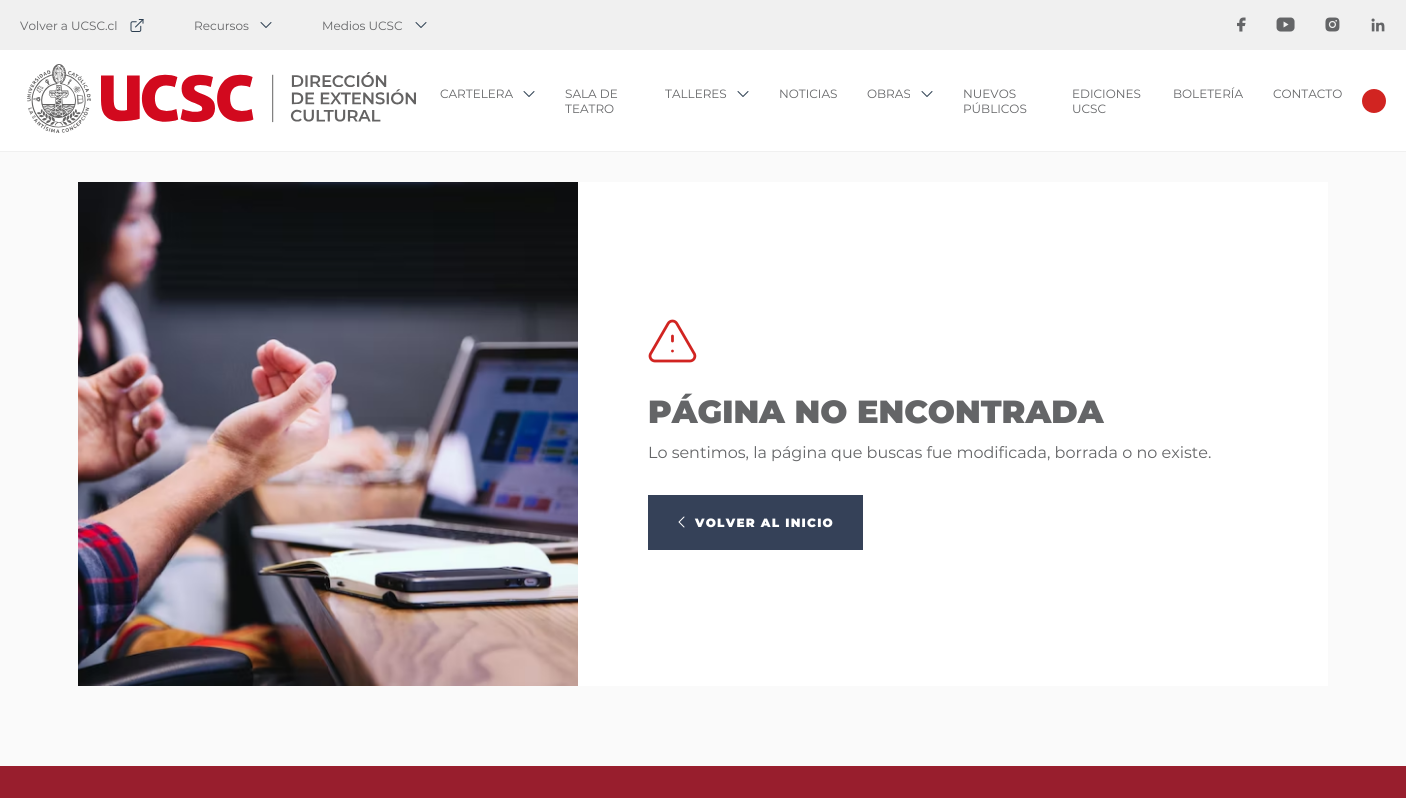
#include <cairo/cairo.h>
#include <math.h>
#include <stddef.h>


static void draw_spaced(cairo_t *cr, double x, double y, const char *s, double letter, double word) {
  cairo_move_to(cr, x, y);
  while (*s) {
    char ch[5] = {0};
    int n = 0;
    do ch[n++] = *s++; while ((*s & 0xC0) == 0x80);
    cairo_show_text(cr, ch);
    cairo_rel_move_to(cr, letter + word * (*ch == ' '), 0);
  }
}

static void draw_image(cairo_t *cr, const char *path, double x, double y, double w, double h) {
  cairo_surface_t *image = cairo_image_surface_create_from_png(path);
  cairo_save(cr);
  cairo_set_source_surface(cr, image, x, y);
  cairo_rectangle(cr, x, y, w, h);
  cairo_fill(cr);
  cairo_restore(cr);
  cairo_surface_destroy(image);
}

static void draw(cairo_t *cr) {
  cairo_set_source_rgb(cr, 250 / 255.0, 250 / 255.0, 250 / 255.0);
  cairo_paint(cr);
  cairo_set_source_rgb(cr, 1, 1, 1);
  cairo_rectangle(cr, 0, 50, 1406, 101);
  cairo_fill(cr);
  cairo_set_source_rgb(cr, 240 / 255.0, 240 / 255.0, 240 / 255.0);
  cairo_rectangle(cr, 0, 0, 1406, 50);
  cairo_fill(cr);
  draw_image(cr, "images/1.png", 130, 19, 14, 13);
  cairo_new_path(cr);
  cairo_move_to(cr, 271, 22.5);
  cairo_line_to(cr, 266, 27.5);
  cairo_line_to(cr, 261, 22.5);
  cairo_set_source_rgb(cr, 44 / 255.0, 62 / 255.0, 80 / 255.0);
  cairo_set_line_width(cr, 1);
  cairo_set_line_cap(cr, CAIRO_LINE_CAP_ROUND);
  cairo_set_line_join(cr, CAIRO_LINE_JOIN_ROUND);
  cairo_stroke(cr);
  cairo_new_path(cr);
  cairo_move_to(cr, 426, 22.5);
  cairo_line_to(cr, 421, 27.5);
  cairo_line_to(cr, 416, 22.5);
  cairo_stroke(cr);
  draw_image(cr, "images/2.png", 1237, 17, 9, 15);
  draw_image(cr, "images/3.png", 1276, 17, 19, 15);
  draw_image(cr, "images/4.png", 1325, 17, 15, 15);
  draw_image(cr, "images/5.png", 1371, 18, 14, 14);
  draw_image(cr, "images/6.png", 27, 64, 389, 69);
  cairo_new_path(cr);
  cairo_move_to(cr, 534, 91.5);
  cairo_line_to(cr, 529, 96.5);
  cairo_line_to(cr, 524, 91.5);
  cairo_stroke(cr);
  cairo_new_path(cr);
  cairo_move_to(cr, 748, 91.5);
  cairo_line_to(cr, 743, 96.5);
  cairo_line_to(cr, 738, 91.5);
  cairo_stroke(cr);
  cairo_new_path(cr);
  cairo_move_to(cr, 932, 91.5);
  cairo_line_to(cr, 927, 96.5);
  cairo_line_to(cr, 922, 91.5);
  cairo_stroke(cr);
  cairo_set_source_rgb(cr, 209 / 255.0, 36 / 255.0, 33 / 255.0);
  cairo_arc(cr, 1374, 101, 12, 0, 2 * M_PI);
  cairo_fill(cr);
  cairo_set_source_rgb(cr, 240 / 255.0, 240 / 255.0, 240 / 255.0);
  cairo_rectangle(cr, 0, 151, 1406, 1);
  cairo_fill(cr);
  draw_image(cr, "images/7.png", 78, 182, 500, 504);
  cairo_set_source_rgb(cr, 1, 1, 1);
  cairo_rectangle(cr, 578, 182, 750, 504);
  cairo_fill(cr);
  draw_image(cr, "images/8.png", 648, 319, 49, 44);
  cairo_set_source_rgb(cr, 53 / 255.0, 65 / 255.0, 88 / 255.0);
  cairo_rectangle(cr, 648, 495, 215, 55);
  cairo_fill(cr);
  cairo_new_path(cr);
  cairo_move_to(cr, 684, 527);
  cairo_line_to(cr, 679, 522);
  cairo_line_to(cr, 684, 517);
  cairo_set_source_rgb(cr, 1, 1, 1);
  cairo_stroke(cr);
  cairo_set_source_rgb(cr, 152 / 255.0, 30 / 255.0, 45 / 255.0);
  cairo_rectangle(cr, 0, 766, 1406, 32);
  cairo_fill(cr);
  cairo_select_font_face(cr, "Montserrat", CAIRO_FONT_SLANT_NORMAL, CAIRO_FONT_WEIGHT_NORMAL);
  cairo_set_font_size(cr, 12);
  cairo_set_source_rgb(cr, 100 / 255.0, 101 / 255.0, 103 / 255.0);
  cairo_move_to(cr, 20, 30);
  cairo_show_text(cr, "Volver a UCSC.cl");
  cairo_move_to(cr, 194, 30);
  cairo_show_text(cr, "Recursos");
  cairo_move_to(cr, 322, 30);
  cairo_show_text(cr, "Medios UCSC");
  cairo_move_to(cr, 440, 98);
  cairo_show_text(cr, "CARTELERA");
  cairo_move_to(cr, 565, 98);
  cairo_show_text(cr, "SALA DE");
  cairo_move_to(cr, 565, 113);
  cairo_show_text(cr, "TEATRO");
  cairo_move_to(cr, 665, 98);
  cairo_show_text(cr, "TALLERES");
  cairo_move_to(cr, 779, 98);
  cairo_show_text(cr, "NOTICIAS");
  cairo_move_to(cr, 867, 98);
  cairo_show_text(cr, "OBRAS");
  cairo_move_to(cr, 963, 98);
  cairo_show_text(cr, "NUEVOS");
  cairo_move_to(cr, 963, 113);
  cairo_show_text(cr, "PÚBLICOS");
  cairo_move_to(cr, 1072, 98);
  cairo_show_text(cr, "EDICIONES");
  cairo_move_to(cr, 1072, 113);
  cairo_show_text(cr, "UCSC");
  cairo_move_to(cr, 1173, 98);
  cairo_show_text(cr, "BOLETERÍA");
  cairo_move_to(cr, 1273, 98);
  cairo_show_text(cr, "CONTACTO");
  cairo_select_font_face(cr, "Montserrat Black", CAIRO_FONT_SLANT_NORMAL, CAIRO_FONT_WEIGHT_NORMAL);
  cairo_set_font_size(cr, 32);
  cairo_move_to(cr, 648, 423);
  cairo_show_text(cr, "PÁGINA NO ENCONTRADA");
  cairo_select_font_face(cr, "Montserrat", CAIRO_FONT_SLANT_NORMAL, CAIRO_FONT_WEIGHT_NORMAL);
  cairo_set_font_size(cr, 16);
  cairo_move_to(cr, 648, 458);
  cairo_show_text(cr, "Lo sentimos, la página que buscas fue modificada, borrada o no existe.");
  cairo_select_font_face(cr, "Montserrat Black", CAIRO_FONT_SLANT_NORMAL, CAIRO_FONT_WEIGHT_NORMAL);
  cairo_set_font_size(cr, 12);
  cairo_set_source_rgb(cr, 1, 1, 1);
  draw_spaced(cr, 695, 527, "VOLVER AL INICIO", 1.25, 0);
}

int main(void) {
  cairo_surface_t *surface = cairo_image_surface_create(CAIRO_FORMAT_RGB24, 1406, 798);
  cairo_t *cr = cairo_create(surface);
  cairo_font_options_t *options = cairo_font_options_create();
  cairo_font_options_set_hint_metrics(options, CAIRO_HINT_METRICS_OFF);
  cairo_font_options_set_hint_style(options, CAIRO_HINT_STYLE_NONE);
  cairo_set_font_options(cr, options);
  cairo_set_miter_limit(cr, 4);
  draw(cr);
  cairo_surface_write_to_png(surface, "out.png");
  cairo_font_options_destroy(options);
  cairo_destroy(cr);
  cairo_surface_destroy(surface);
  return 0;
}
